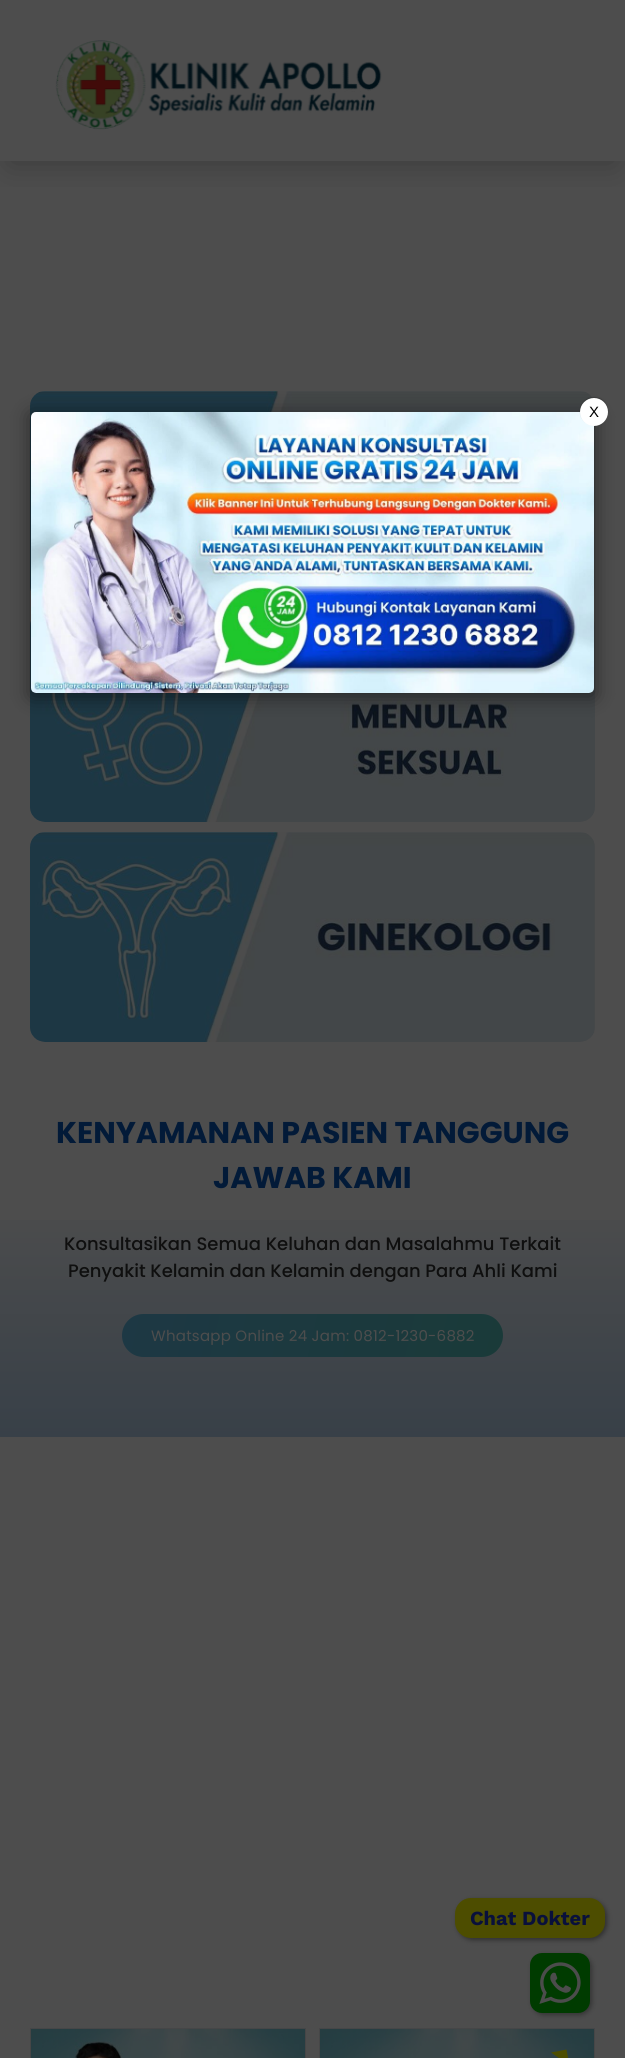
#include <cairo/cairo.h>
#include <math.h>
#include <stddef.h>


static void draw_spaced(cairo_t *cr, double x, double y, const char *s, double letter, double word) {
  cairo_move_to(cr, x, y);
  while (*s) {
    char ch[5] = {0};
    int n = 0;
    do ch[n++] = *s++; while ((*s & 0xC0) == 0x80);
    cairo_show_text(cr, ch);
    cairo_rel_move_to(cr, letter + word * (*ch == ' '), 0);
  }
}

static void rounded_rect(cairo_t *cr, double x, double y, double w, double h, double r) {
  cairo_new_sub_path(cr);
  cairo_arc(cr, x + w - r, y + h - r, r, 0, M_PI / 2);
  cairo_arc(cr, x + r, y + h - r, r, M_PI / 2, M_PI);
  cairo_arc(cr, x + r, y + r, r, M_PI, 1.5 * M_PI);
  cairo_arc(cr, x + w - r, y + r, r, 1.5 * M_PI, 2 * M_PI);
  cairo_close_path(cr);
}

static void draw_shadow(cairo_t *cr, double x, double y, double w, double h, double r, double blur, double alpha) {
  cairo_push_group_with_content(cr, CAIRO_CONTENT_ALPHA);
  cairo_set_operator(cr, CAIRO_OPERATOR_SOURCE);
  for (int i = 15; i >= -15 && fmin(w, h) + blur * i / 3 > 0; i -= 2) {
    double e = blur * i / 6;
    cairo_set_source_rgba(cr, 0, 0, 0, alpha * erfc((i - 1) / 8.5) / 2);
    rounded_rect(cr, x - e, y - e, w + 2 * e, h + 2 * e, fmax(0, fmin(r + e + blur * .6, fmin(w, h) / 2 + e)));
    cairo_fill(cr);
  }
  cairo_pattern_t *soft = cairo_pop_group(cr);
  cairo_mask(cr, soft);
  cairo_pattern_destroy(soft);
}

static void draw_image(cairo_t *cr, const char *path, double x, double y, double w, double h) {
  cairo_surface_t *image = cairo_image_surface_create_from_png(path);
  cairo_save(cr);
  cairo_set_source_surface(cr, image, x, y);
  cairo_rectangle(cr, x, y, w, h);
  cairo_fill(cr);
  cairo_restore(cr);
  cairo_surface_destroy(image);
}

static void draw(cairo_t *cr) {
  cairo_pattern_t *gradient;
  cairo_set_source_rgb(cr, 77 / 255.0, 77 / 255.0, 77 / 255.0);
  cairo_paint(cr);
  draw_image(cr, "images/3.png", 30, 391, 565, 201);
  draw_image(cr, "images/4.png", 30, 621, 565, 201);
  cairo_set_source_rgb(cr, 0, 0, 0);
  draw_shadow(cr, 31, 415, 563, 281, 0, 10, 0.5);
  draw_image(cr, "images/1.png", 31, 412, 563, 281);
  draw_shadow(cr, 580, 397, 28, 28, 14, 0.5, 0.2);
  cairo_set_source_rgb(cr, 1, 1, 1);
  cairo_arc(cr, 594, 412, 14, 0, 2 * M_PI);
  cairo_fill(cr);
  cairo_save(cr);
  cairo_rectangle(cr, 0, 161, 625, 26);
  cairo_clip(cr);
  cairo_set_source_rgb(cr, 15 / 255.0, 15 / 255.0, 15 / 255.0);
  draw_shadow(cr, 10, 22, 605, 141, 0, 16, 0.31);
  cairo_restore(cr);
  draw_image(cr, "images/2.png", 55, 40, 327, 90);
  draw_image(cr, "images/5.png", 30, 832, 565, 210);
  gradient = cairo_pattern_create_linear(313, 1052, 313, 1437);
  cairo_pattern_add_color_stop_rgba(gradient, 0.36, 77 / 255.0, 77 / 255.0, 77 / 255.0, 1);
  cairo_pattern_add_color_stop_rgba(gradient, 1, 56 / 255.0, 64 / 255.0, 72 / 255.0, 1);
  cairo_set_source(cr, gradient);
  cairo_pattern_destroy(gradient);
  cairo_rectangle(cr, 0, 1220, 625, 217);
  cairo_fill(cr);
  gradient = cairo_pattern_create_linear(498, 1378, 127, 1293);
  cairo_pattern_add_color_stop_rgba(gradient, 0, 26 / 255.0, 58 / 255.0, 57 / 255.0, 1);
  cairo_pattern_add_color_stop_rgba(gradient, 1, 29 / 255.0, 56 / 255.0, 68 / 255.0, 1);
  cairo_set_source(cr, gradient);
  cairo_pattern_destroy(gradient);
  rounded_rect(cr, 122, 1314, 381, 43, 21.5);
  cairo_fill(cr);
  cairo_rectangle(cr, 30.5, 2028.5, 275, 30);
  cairo_set_source_rgb(cr, 70 / 255.0, 70 / 255.0, 71 / 255.0);
  cairo_set_line_width(cr, 1);
  cairo_stroke(cr);
  draw_image(cr, "images/6.png", 31, 2029, 274, 29);
  cairo_rectangle(cr, 319.5, 2028.5, 275, 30);
  cairo_stroke(cr);
  draw_image(cr, "images/7.png", 320, 2029, 274, 29);
  cairo_set_source_rgb(cr, 0, 0, 0);
  draw_shadow(cr, 457, 1900, 150, 40, 16, 2.5, 0.4);
  cairo_set_source_rgb(cr, 77 / 255.0, 77 / 255.0, 0);
  rounded_rect(cr, 455, 1898, 150, 40, 16);
  cairo_fill(cr);
  cairo_new_path(cr);
  cairo_move_to(cr, 566.5, 2049.5);
  cairo_line_to(cr, 569.5, 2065.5);
  cairo_line_to(cr, 551, 2052.5);
  cairo_close_path(cr);
  cairo_fill(cr);
  cairo_set_source_rgb(cr, 0, 0, 0);
  draw_shadow(cr, 532, 1955, 60, 60, 12, 2.5, 0.33);
  cairo_set_source_rgb(cr, 0, 59 / 255.0, 0);
  rounded_rect(cr, 530, 1953, 60, 60, 12);
  cairo_fill(cr);
  draw_image(cr, "images/8.png", 539, 1962, 42, 42);
  cairo_select_font_face(cr, "Liberation Sans", CAIRO_FONT_SLANT_NORMAL, CAIRO_FONT_WEIGHT_NORMAL);
  cairo_set_font_size(cr, 15);
  cairo_set_source_rgb(cr, 0, 0, 0);
  cairo_move_to(cr, 589, 417);
  cairo_show_text(cr, "X");
  cairo_select_font_face(cr, "Poppins", CAIRO_FONT_SLANT_NORMAL, CAIRO_FONT_WEIGHT_BOLD);
  cairo_set_font_size(cr, 30);
  cairo_set_source_rgb(cr, 2 / 255.0, 26 / 255.0, 56 / 255.0);
  cairo_move_to(cr, 56, 1143);
  cairo_show_text(cr, "KENYAMANAN PASIEN TANGGUNG");
  cairo_move_to(cr, 213, 1188);
  cairo_show_text(cr, "JAWAB KAMI");
  cairo_select_font_face(cr, "Poppins Medium", CAIRO_FONT_SLANT_NORMAL, CAIRO_FONT_WEIGHT_NORMAL);
  cairo_set_font_size(cr, 18);
  cairo_set_source_rgb(cr, 15 / 255.0, 15 / 255.0, 15 / 255.0);
  cairo_move_to(cr, 64, 1250);
  cairo_show_text(cr, "Konsultasikan Semua Keluhan dan Masalahmu Terkait");
  cairo_move_to(cr, 68, 1277);
  cairo_show_text(cr, "Penyakit Kelamin dan Kelamin dengan Para Ahli Kami");
  cairo_select_font_face(cr, "Poppins", CAIRO_FONT_SLANT_NORMAL, CAIRO_FONT_WEIGHT_NORMAL);
  cairo_set_font_size(cr, 15);
  cairo_set_source_rgb(cr, 77 / 255.0, 77 / 255.0, 77 / 255.0);
  draw_spaced(cr, 151, 1341, "Whatsapp Online 24 Jam: 0812-1230-6882", 0.25, 0);
  cairo_select_font_face(cr, "Work Sans", CAIRO_FONT_SLANT_NORMAL, CAIRO_FONT_WEIGHT_BOLD);
  cairo_set_font_size(cr, 20);
  cairo_set_source_rgb(cr, 9 / 255.0, 16 / 255.0, 59 / 255.0);
  cairo_move_to(cr, 470, 1925);
  cairo_show_text(cr, "Chat Dokter");
}

int main(void) {
  cairo_surface_t *surface = cairo_image_surface_create(CAIRO_FORMAT_RGB24, 625, 2058);
  cairo_t *cr = cairo_create(surface);
  cairo_font_options_t *options = cairo_font_options_create();
  cairo_font_options_set_hint_metrics(options, CAIRO_HINT_METRICS_OFF);
  cairo_font_options_set_hint_style(options, CAIRO_HINT_STYLE_NONE);
  cairo_set_font_options(cr, options);
  cairo_set_miter_limit(cr, 4);
  draw(cr);
  cairo_surface_write_to_png(surface, "out.png");
  cairo_font_options_destroy(options);
  cairo_destroy(cr);
  cairo_surface_destroy(surface);
  return 0;
}
